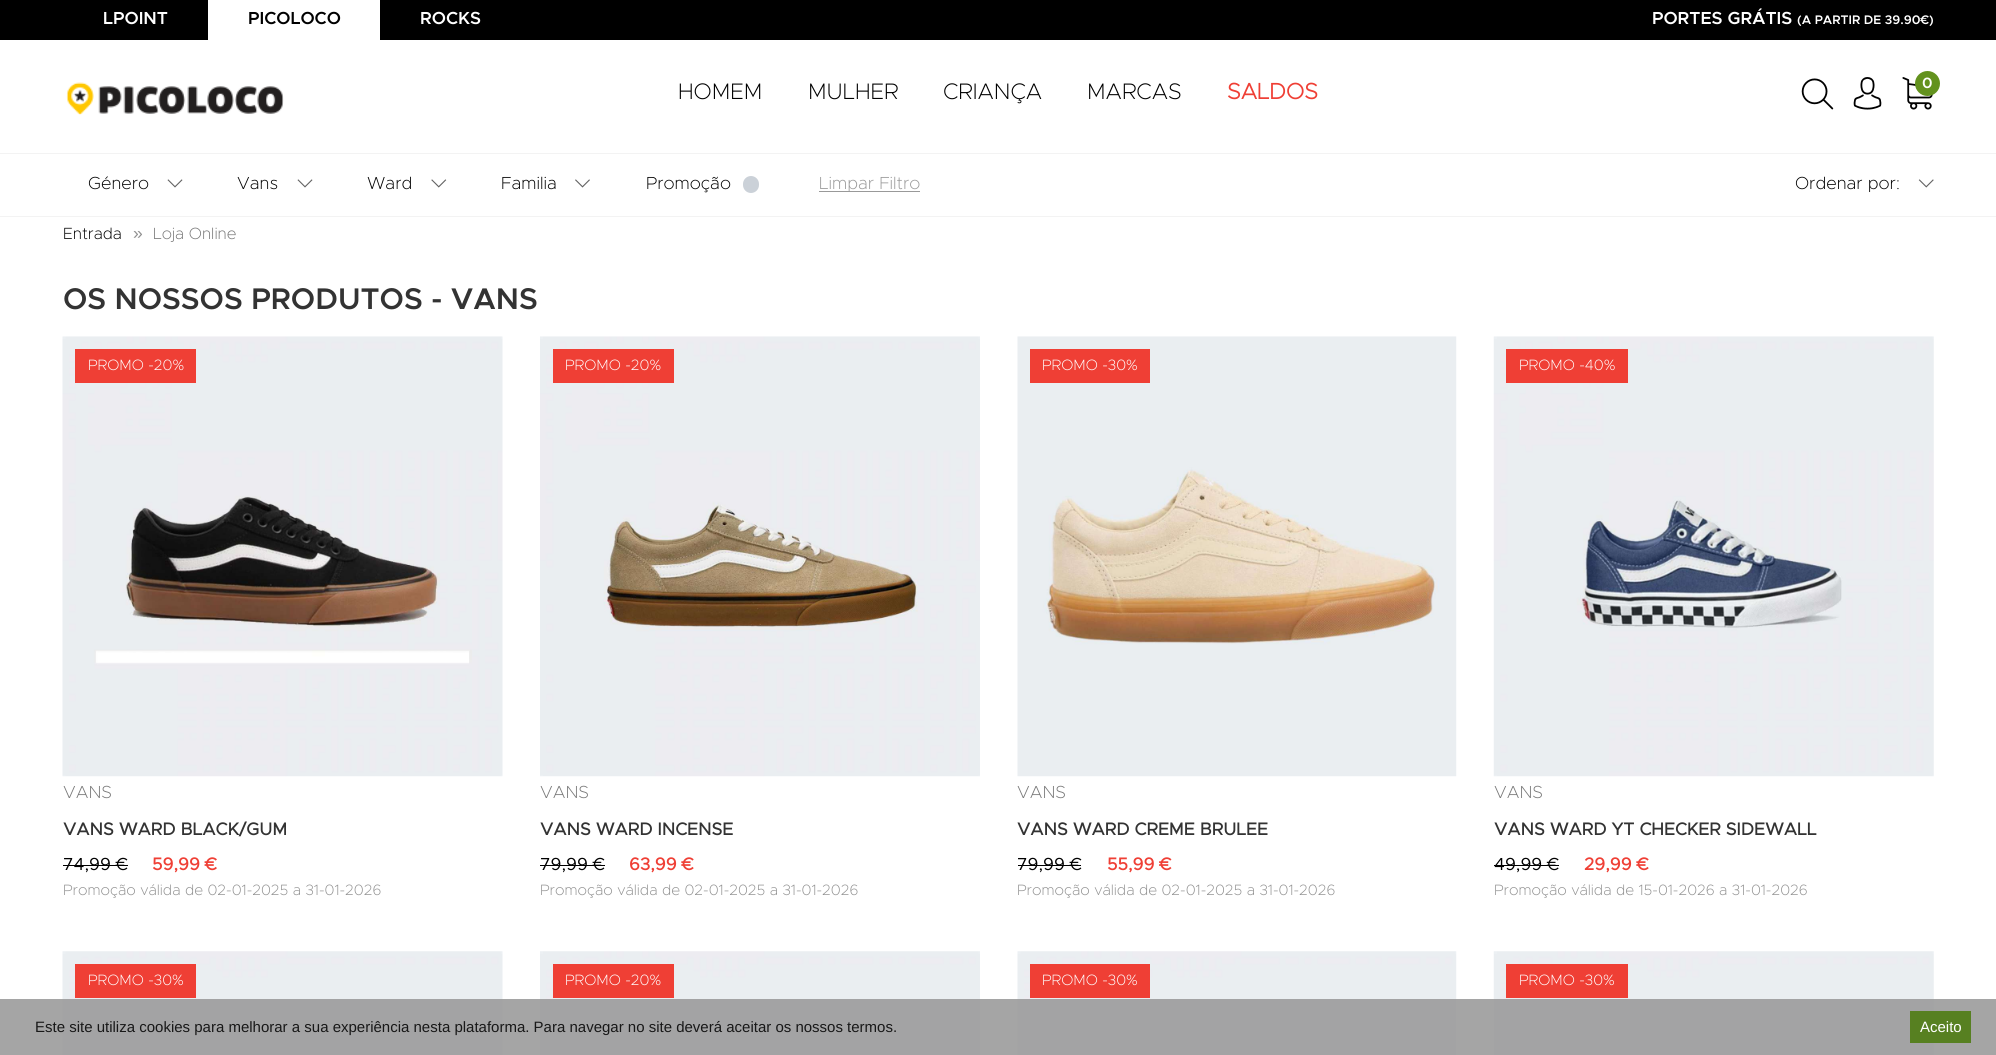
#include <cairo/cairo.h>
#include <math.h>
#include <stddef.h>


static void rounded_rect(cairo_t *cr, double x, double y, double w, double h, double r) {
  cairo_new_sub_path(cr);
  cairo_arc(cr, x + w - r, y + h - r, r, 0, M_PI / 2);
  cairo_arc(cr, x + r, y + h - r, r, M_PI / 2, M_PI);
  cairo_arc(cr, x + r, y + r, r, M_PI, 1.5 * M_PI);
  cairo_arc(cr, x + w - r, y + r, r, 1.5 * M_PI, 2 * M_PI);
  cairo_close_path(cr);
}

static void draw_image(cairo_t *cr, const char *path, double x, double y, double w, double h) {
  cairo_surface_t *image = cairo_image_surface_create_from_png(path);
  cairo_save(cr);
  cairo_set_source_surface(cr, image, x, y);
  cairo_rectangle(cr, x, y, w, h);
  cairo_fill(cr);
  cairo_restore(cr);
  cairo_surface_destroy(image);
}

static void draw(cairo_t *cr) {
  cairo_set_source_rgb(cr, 1, 1, 1);
  cairo_paint(cr);
  cairo_set_source_rgb(cr, 0, 0, 0);
  cairo_rectangle(cr, 0, 0, 1996, 40);
  cairo_fill(cr);
  cairo_set_source_rgb(cr, 1, 1, 1);
  cairo_rectangle(cr, 208, 0, 172, 40);
  cairo_fill(cr);
  cairo_set_source_rgb(cr, 243 / 255.0, 243 / 255.0, 243 / 255.0);
  cairo_rectangle(cr, 0, 153, 1996, 1);
  cairo_fill(cr);
  draw_image(cr, "images/1.png", 66, 82, 218, 33);
  draw_image(cr, "images/2.png", 1801, 78, 33, 32);
  draw_image(cr, "images/3.png", 1853, 77, 29, 33);
  draw_image(cr, "images/4.png", 1902, 77, 31, 33);
  cairo_set_source_rgb(cr, 99 / 255.0, 146 / 255.0, 30 / 255.0);
  cairo_arc(cr, 1927.5, 83.5, 12.5, 0, 2 * M_PI);
  cairo_fill(cr);
  cairo_set_source_rgb(cr, 243 / 255.0, 243 / 255.0, 243 / 255.0);
  cairo_rectangle(cr, 0, 216, 1996, 1);
  cairo_fill(cr);
  draw_image(cr, "images/5.png", 167, 179, 16, 9);
  draw_image(cr, "images/5.png", 297, 179, 16, 9);
  draw_image(cr, "images/6.png", 431, 179, 16, 9);
  draw_image(cr, "images/7.png", 575, 179, 15, 9);
  cairo_set_source_rgb(cr, 203 / 255.0, 209 / 255.0, 216 / 255.0);
  rounded_rect(cr, 743, 176, 16, 17, 8);
  cairo_fill(cr);
  cairo_set_source_rgb(cr, 153 / 255.0, 153 / 255.0, 153 / 255.0);
  cairo_rectangle(cr, 819, 191, 101, 1);
  cairo_fill(cr);
  draw_image(cr, "images/8.png", 1918, 179, 16, 9);
  draw_image(cr, "images/9.png", 62, 336, 441, 441);
  cairo_set_source_rgb(cr, 239 / 255.0, 63 / 255.0, 53 / 255.0);
  cairo_rectangle(cr, 75, 349, 121, 34);
  cairo_fill(cr);
  cairo_set_source_rgb(cr, 0, 0, 0);
  cairo_rectangle(cr, 63, 865, 65, 1);
  cairo_fill(cr);
  draw_image(cr, "images/10.png", 540, 336, 440, 441);
  cairo_set_source_rgb(cr, 239 / 255.0, 63 / 255.0, 53 / 255.0);
  cairo_rectangle(cr, 553, 349, 121, 34);
  cairo_fill(cr);
  cairo_set_source_rgb(cr, 0, 0, 0);
  cairo_rectangle(cr, 540, 865, 65, 1);
  cairo_fill(cr);
  draw_image(cr, "images/11.png", 1017, 336, 440, 441);
  cairo_set_source_rgb(cr, 239 / 255.0, 63 / 255.0, 53 / 255.0);
  cairo_rectangle(cr, 1030, 349, 120, 34);
  cairo_fill(cr);
  cairo_set_source_rgb(cr, 0, 0, 0);
  cairo_rectangle(cr, 1018, 865, 63, 1);
  cairo_fill(cr);
  draw_image(cr, "images/12.png", 1493, 336, 441, 441);
  cairo_set_source_rgb(cr, 239 / 255.0, 63 / 255.0, 53 / 255.0);
  cairo_rectangle(cr, 1506, 349, 122, 34);
  cairo_fill(cr);
  cairo_set_source_rgb(cr, 0, 0, 0);
  cairo_rectangle(cr, 1494, 865, 65, 1);
  cairo_fill(cr);
  draw_image(cr, "images/13.png", 62, 951, 441, 104);
  cairo_set_source_rgb(cr, 239 / 255.0, 63 / 255.0, 53 / 255.0);
  cairo_rectangle(cr, 75, 964, 121, 34);
  cairo_fill(cr);
  draw_image(cr, "images/14.png", 540, 951, 440, 104);
  cairo_rectangle(cr, 553, 964, 121, 34);
  cairo_fill(cr);
  draw_image(cr, "images/15.png", 1017, 951, 440, 104);
  cairo_rectangle(cr, 1030, 964, 120, 34);
  cairo_fill(cr);
  draw_image(cr, "images/16.png", 1493, 951, 441, 104);
  cairo_rectangle(cr, 1506, 964, 122, 34);
  cairo_fill(cr);
  cairo_set_source_rgba(cr, 155 / 255.0, 156 / 255.0, 156 / 255.0, 0.9);
  cairo_rectangle(cr, 0, 999, 1996, 56);
  cairo_fill(cr);
  cairo_set_source_rgb(cr, 87 / 255.0, 128 / 255.0, 33 / 255.0);
  cairo_rectangle(cr, 1910, 1011, 61, 32);
  cairo_fill(cr);
  cairo_select_font_face(cr, "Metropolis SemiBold", CAIRO_FONT_SLANT_NORMAL, CAIRO_FONT_WEIGHT_NORMAL);
  cairo_set_font_size(cr, 17.5);
  cairo_set_source_rgb(cr, 1, 1, 1);
  cairo_move_to(cr, 103, 24);
  cairo_show_text(cr, "LPOINT");
  cairo_set_source_rgb(cr, 0, 0, 0);
  cairo_move_to(cr, 248, 24);
  cairo_show_text(cr, "PICOLOCO");
  cairo_set_source_rgb(cr, 1, 1, 1);
  cairo_move_to(cr, 420, 24);
  cairo_show_text(cr, "ROCKS");
  cairo_move_to(cr, 1652, 24);
  cairo_show_text(cr, "PORTES GRÁTIS");
  cairo_set_font_size(cr, 12.5);
  cairo_move_to(cr, 1797, 24);
  cairo_show_text(cr, "(A PARTIR DE 39.90€)");
  cairo_select_font_face(cr, "Metropolis ExtraLight", CAIRO_FONT_SLANT_NORMAL, CAIRO_FONT_WEIGHT_NORMAL);
  cairo_set_font_size(cr, 22.5);
  cairo_set_source_rgb(cr, 0, 0, 0);
  cairo_move_to(cr, 678, 99);
  cairo_show_text(cr, "HOMEM");
  cairo_move_to(cr, 808, 99);
  cairo_show_text(cr, "MULHER");
  cairo_move_to(cr, 943, 99);
  cairo_show_text(cr, "CRIANÇA");
  cairo_move_to(cr, 1087, 99);
  cairo_show_text(cr, "MARCAS");
  cairo_select_font_face(cr, "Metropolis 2", CAIRO_FONT_SLANT_NORMAL, CAIRO_FONT_WEIGHT_BOLD);
  cairo_set_source_rgb(cr, 239 / 255.0, 63 / 255.0, 53 / 255.0);
  cairo_move_to(cr, 1227, 99);
  cairo_show_text(cr, "SALDOS");
  cairo_select_font_face(cr, "Metropolis SemiBold", CAIRO_FONT_SLANT_NORMAL, CAIRO_FONT_WEIGHT_NORMAL);
  cairo_set_font_size(cr, 15);
  cairo_set_source_rgb(cr, 1, 1, 1);
  cairo_move_to(cr, 1922, 88);
  cairo_show_text(cr, "0");
  cairo_select_font_face(cr, "Metropolis ExtraLight", CAIRO_FONT_SLANT_NORMAL, CAIRO_FONT_WEIGHT_NORMAL);
  cairo_set_font_size(cr, 17.5);
  cairo_set_source_rgb(cr, 0, 0, 0);
  cairo_move_to(cr, 88, 189);
  cairo_show_text(cr, "Género");
  cairo_move_to(cr, 237, 189);
  cairo_show_text(cr, "Vans");
  cairo_move_to(cr, 367, 189);
  cairo_show_text(cr, "Ward");
  cairo_move_to(cr, 501, 189);
  cairo_show_text(cr, "Familia");
  cairo_move_to(cr, 646, 189);
  cairo_show_text(cr, "Promoção");
  cairo_set_source_rgb(cr, 153 / 255.0, 153 / 255.0, 153 / 255.0);
  cairo_move_to(cr, 819, 189);
  cairo_show_text(cr, "Limpar Filtro");
  cairo_set_source_rgb(cr, 0, 0, 0);
  cairo_move_to(cr, 1795, 189);
  cairo_show_text(cr, "Ordenar por:");
  cairo_set_font_size(cr, 16.25);
  cairo_move_to(cr, 63, 239);
  cairo_show_text(cr, "Entrada");
  cairo_select_font_face(cr, "Liberation Sans", CAIRO_FONT_SLANT_NORMAL, CAIRO_FONT_WEIGHT_NORMAL);
  cairo_set_font_size(cr, 17.5);
  cairo_set_source_rgb(cr, 145 / 255.0, 145 / 255.0, 145 / 255.0);
  cairo_move_to(cr, 133, 239);
  cairo_show_text(cr, "»");
  cairo_select_font_face(cr, "Metropolis ExtraLight", CAIRO_FONT_SLANT_NORMAL, CAIRO_FONT_WEIGHT_NORMAL);
  cairo_set_font_size(cr, 16.25);
  cairo_set_source_rgb(cr, 119 / 255.0, 119 / 255.0, 119 / 255.0);
  cairo_move_to(cr, 153, 239);
  cairo_show_text(cr, "Loja Online");
  cairo_select_font_face(cr, "Metropolis SemiBold", CAIRO_FONT_SLANT_NORMAL, CAIRO_FONT_WEIGHT_NORMAL);
  cairo_set_font_size(cr, 30);
  cairo_set_source_rgb(cr, 51 / 255.0, 51 / 255.0, 51 / 255.0);
  cairo_move_to(cr, 63, 309);
  cairo_show_text(cr, "OS NOSSOS PRODUTOS - VANS");
  cairo_select_font_face(cr, "Metropolis ExtraLight", CAIRO_FONT_SLANT_NORMAL, CAIRO_FONT_WEIGHT_NORMAL);
  cairo_set_font_size(cr, 15);
  cairo_set_source_rgb(cr, 1, 1, 1);
  cairo_move_to(cr, 88, 370);
  cairo_show_text(cr, "PROMO -20%");
  cairo_set_font_size(cr, 17.5);
  cairo_set_source_rgb(cr, 119 / 255.0, 119 / 255.0, 119 / 255.0);
  cairo_move_to(cr, 63, 798);
  cairo_show_text(cr, "VANS");
  cairo_select_font_face(cr, "Metropolis", CAIRO_FONT_SLANT_NORMAL, CAIRO_FONT_WEIGHT_BOLD);
  cairo_set_source_rgb(cr, 51 / 255.0, 51 / 255.0, 51 / 255.0);
  cairo_move_to(cr, 63, 835);
  cairo_show_text(cr, "VANS WARD BLACK/GUM");
  cairo_select_font_face(cr, "Metropolis", CAIRO_FONT_SLANT_NORMAL, CAIRO_FONT_WEIGHT_NORMAL);
  cairo_set_source_rgb(cr, 0, 0, 0);
  cairo_move_to(cr, 63, 870);
  cairo_show_text(cr, "74,99 €");
  cairo_select_font_face(cr, "Metropolis", CAIRO_FONT_SLANT_NORMAL, CAIRO_FONT_WEIGHT_BOLD);
  cairo_set_source_rgb(cr, 239 / 255.0, 63 / 255.0, 53 / 255.0);
  cairo_move_to(cr, 152, 870);
  cairo_show_text(cr, "59,99 €");
  cairo_select_font_face(cr, "Metropolis ExtraLight", CAIRO_FONT_SLANT_NORMAL, CAIRO_FONT_WEIGHT_NORMAL);
  cairo_set_font_size(cr, 15);
  cairo_set_source_rgb(cr, 145 / 255.0, 145 / 255.0, 145 / 255.0);
  cairo_move_to(cr, 63, 895);
  cairo_show_text(cr, "Promoção válida de 02-01-2025 a 31-01-2026");
  cairo_set_source_rgb(cr, 1, 1, 1);
  cairo_move_to(cr, 565, 370);
  cairo_show_text(cr, "PROMO -20%");
  cairo_set_font_size(cr, 17.5);
  cairo_set_source_rgb(cr, 119 / 255.0, 119 / 255.0, 119 / 255.0);
  cairo_move_to(cr, 540, 798);
  cairo_show_text(cr, "VANS");
  cairo_select_font_face(cr, "Metropolis", CAIRO_FONT_SLANT_NORMAL, CAIRO_FONT_WEIGHT_BOLD);
  cairo_set_source_rgb(cr, 51 / 255.0, 51 / 255.0, 51 / 255.0);
  cairo_move_to(cr, 540, 835);
  cairo_show_text(cr, "VANS WARD INCENSE");
  cairo_select_font_face(cr, "Metropolis", CAIRO_FONT_SLANT_NORMAL, CAIRO_FONT_WEIGHT_NORMAL);
  cairo_set_source_rgb(cr, 0, 0, 0);
  cairo_move_to(cr, 540, 870);
  cairo_show_text(cr, "79,99 €");
  cairo_select_font_face(cr, "Metropolis", CAIRO_FONT_SLANT_NORMAL, CAIRO_FONT_WEIGHT_BOLD);
  cairo_set_source_rgb(cr, 239 / 255.0, 63 / 255.0, 53 / 255.0);
  cairo_move_to(cr, 629, 870);
  cairo_show_text(cr, "63,99 €");
  cairo_select_font_face(cr, "Metropolis ExtraLight", CAIRO_FONT_SLANT_NORMAL, CAIRO_FONT_WEIGHT_NORMAL);
  cairo_set_font_size(cr, 15);
  cairo_set_source_rgb(cr, 145 / 255.0, 145 / 255.0, 145 / 255.0);
  cairo_move_to(cr, 540, 895);
  cairo_show_text(cr, "Promoção válida de 02-01-2025 a 31-01-2026");
  cairo_set_source_rgb(cr, 1, 1, 1);
  cairo_move_to(cr, 1042, 370);
  cairo_show_text(cr, "PROMO -30%");
  cairo_set_font_size(cr, 17.5);
  cairo_set_source_rgb(cr, 119 / 255.0, 119 / 255.0, 119 / 255.0);
  cairo_move_to(cr, 1017, 798);
  cairo_show_text(cr, "VANS");
  cairo_select_font_face(cr, "Metropolis", CAIRO_FONT_SLANT_NORMAL, CAIRO_FONT_WEIGHT_BOLD);
  cairo_set_source_rgb(cr, 51 / 255.0, 51 / 255.0, 51 / 255.0);
  cairo_move_to(cr, 1017, 835);
  cairo_show_text(cr, "VANS WARD CREME BRULEE");
  cairo_select_font_face(cr, "Metropolis", CAIRO_FONT_SLANT_NORMAL, CAIRO_FONT_WEIGHT_NORMAL);
  cairo_set_source_rgb(cr, 0, 0, 0);
  cairo_move_to(cr, 1017, 870);
  cairo_show_text(cr, "79,99 €");
  cairo_select_font_face(cr, "Metropolis", CAIRO_FONT_SLANT_NORMAL, CAIRO_FONT_WEIGHT_BOLD);
  cairo_set_source_rgb(cr, 239 / 255.0, 63 / 255.0, 53 / 255.0);
  cairo_move_to(cr, 1107, 870);
  cairo_show_text(cr, "55,99 €");
  cairo_select_font_face(cr, "Metropolis ExtraLight", CAIRO_FONT_SLANT_NORMAL, CAIRO_FONT_WEIGHT_NORMAL);
  cairo_set_font_size(cr, 15);
  cairo_set_source_rgb(cr, 145 / 255.0, 145 / 255.0, 145 / 255.0);
  cairo_move_to(cr, 1017, 895);
  cairo_show_text(cr, "Promoção válida de 02-01-2025 a 31-01-2026");
  cairo_set_source_rgb(cr, 1, 1, 1);
  cairo_move_to(cr, 1519, 370);
  cairo_show_text(cr, "PROMO -40%");
  cairo_set_font_size(cr, 17.5);
  cairo_set_source_rgb(cr, 119 / 255.0, 119 / 255.0, 119 / 255.0);
  cairo_move_to(cr, 1494, 798);
  cairo_show_text(cr, "VANS");
  cairo_select_font_face(cr, "Metropolis", CAIRO_FONT_SLANT_NORMAL, CAIRO_FONT_WEIGHT_BOLD);
  cairo_set_source_rgb(cr, 51 / 255.0, 51 / 255.0, 51 / 255.0);
  cairo_move_to(cr, 1494, 835);
  cairo_show_text(cr, "VANS WARD YT CHECKER SIDEWALL");
  cairo_select_font_face(cr, "Metropolis", CAIRO_FONT_SLANT_NORMAL, CAIRO_FONT_WEIGHT_NORMAL);
  cairo_set_source_rgb(cr, 0, 0, 0);
  cairo_move_to(cr, 1494, 870);
  cairo_show_text(cr, "49,99 €");
  cairo_select_font_face(cr, "Metropolis", CAIRO_FONT_SLANT_NORMAL, CAIRO_FONT_WEIGHT_BOLD);
  cairo_set_source_rgb(cr, 239 / 255.0, 63 / 255.0, 53 / 255.0);
  cairo_move_to(cr, 1584, 870);
  cairo_show_text(cr, "29,99 €");
  cairo_select_font_face(cr, "Metropolis ExtraLight", CAIRO_FONT_SLANT_NORMAL, CAIRO_FONT_WEIGHT_NORMAL);
  cairo_set_font_size(cr, 15);
  cairo_set_source_rgb(cr, 145 / 255.0, 145 / 255.0, 145 / 255.0);
  cairo_move_to(cr, 1494, 895);
  cairo_show_text(cr, "Promoção válida de 15-01-2026 a 31-01-2026");
  cairo_set_source_rgb(cr, 1, 1, 1);
  cairo_move_to(cr, 88, 985);
  cairo_show_text(cr, "PROMO -30%");
  cairo_move_to(cr, 565, 985);
  cairo_show_text(cr, "PROMO -20%");
  cairo_move_to(cr, 1042, 985);
  cairo_show_text(cr, "PROMO -30%");
  cairo_move_to(cr, 1519, 985);
  cairo_show_text(cr, "PROMO -30%");
  cairo_select_font_face(cr, "Liberation Sans", CAIRO_FONT_SLANT_NORMAL, CAIRO_FONT_WEIGHT_NORMAL);
  cairo_set_source_rgb(cr, 24 / 255.0, 24 / 255.0, 24 / 255.0);
  cairo_move_to(cr, 35, 1032);
  cairo_show_text(cr, "Este site utiliza cookies para melhorar a sua experiência nesta plataforma. Para navegar no site deverá aceitar os nossos termos.");
  cairo_set_source_rgb(cr, 1, 1, 1);
  cairo_move_to(cr, 1920, 1032);
  cairo_show_text(cr, "Aceito");
}

int main(void) {
  cairo_surface_t *surface = cairo_image_surface_create(CAIRO_FORMAT_RGB24, 1996, 1055);
  cairo_t *cr = cairo_create(surface);
  cairo_font_options_t *options = cairo_font_options_create();
  cairo_font_options_set_hint_metrics(options, CAIRO_HINT_METRICS_OFF);
  cairo_font_options_set_hint_style(options, CAIRO_HINT_STYLE_NONE);
  cairo_set_font_options(cr, options);
  cairo_set_miter_limit(cr, 4);
  draw(cr);
  cairo_surface_write_to_png(surface, "out.png");
  cairo_font_options_destroy(options);
  cairo_destroy(cr);
  cairo_surface_destroy(surface);
  return 0;
}
